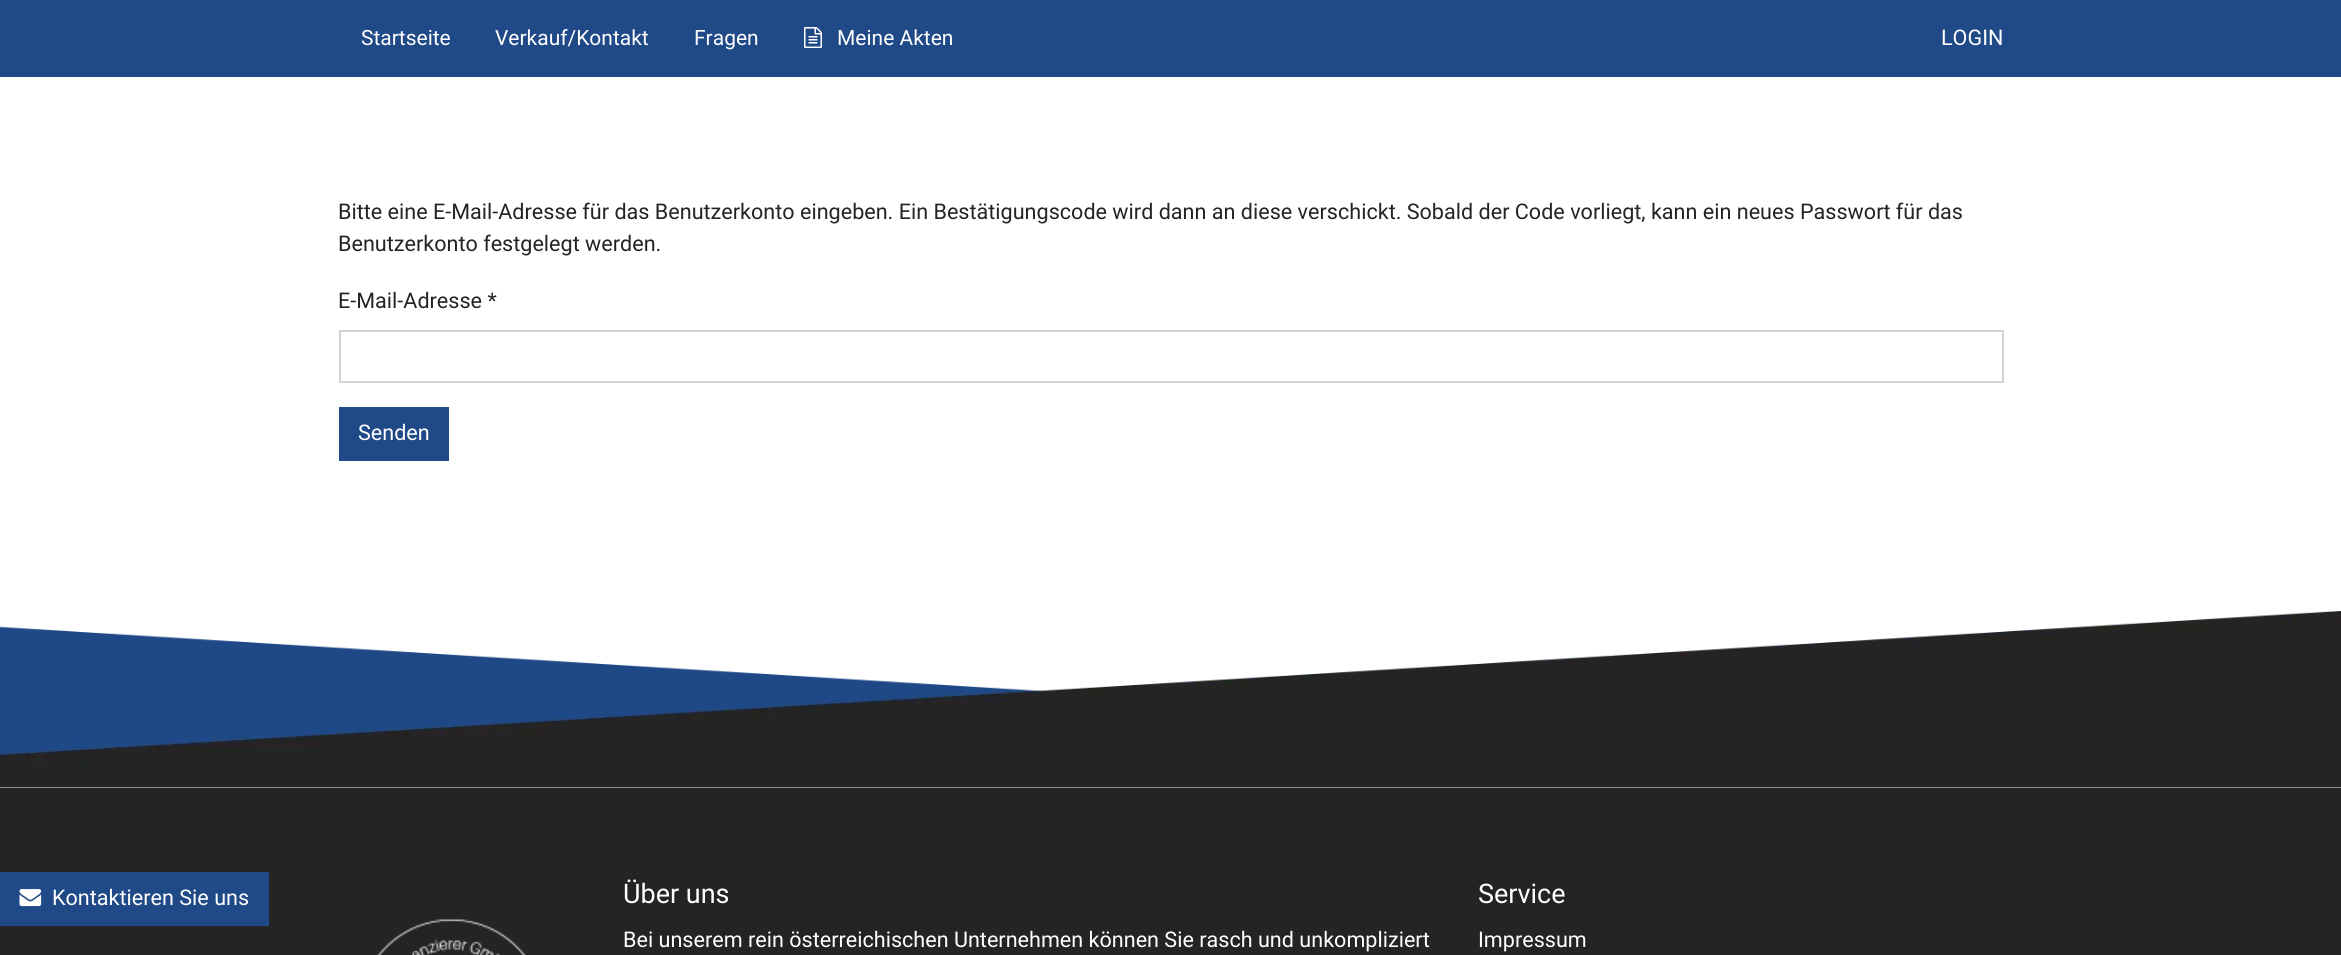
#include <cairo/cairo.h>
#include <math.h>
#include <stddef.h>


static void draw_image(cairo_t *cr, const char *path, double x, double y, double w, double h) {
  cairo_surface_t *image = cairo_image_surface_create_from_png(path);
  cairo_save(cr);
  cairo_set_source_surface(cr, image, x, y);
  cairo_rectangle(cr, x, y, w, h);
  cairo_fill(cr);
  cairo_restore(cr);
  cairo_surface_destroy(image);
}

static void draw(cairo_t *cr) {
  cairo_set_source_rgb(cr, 1, 1, 1);
  cairo_paint(cr);
  cairo_set_source_rgb(cr, 32 / 255.0, 73 / 255.0, 135 / 255.0);
  cairo_rectangle(cr, 0, 0, 2341, 77);
  cairo_fill(cr);
  draw_image(cr, "images/1.png", 804, 27, 18, 21);
  cairo_rectangle(cr, 340, 331, 1663, 51);
  cairo_set_source_rgb(cr, 206 / 255.0, 212 / 255.0, 218 / 255.0);
  cairo_stroke(cr);
  cairo_set_source_rgb(cr, 32 / 255.0, 73 / 255.0, 135 / 255.0);
  cairo_rectangle(cr, 339, 407, 110, 54);
  cairo_fill(cr);
  draw_image(cr, "images/2.png", 0, 611, 2341, 177);
  cairo_set_source_rgb(cr, 36 / 255.0, 36 / 255.0, 36 / 255.0);
  cairo_rectangle(cr, 0, 788, 2341, 167);
  cairo_fill(cr);
  cairo_set_source_rgb(cr, 32 / 255.0, 73 / 255.0, 135 / 255.0);
  cairo_rectangle(cr, 0, 872, 269, 54);
  cairo_fill(cr);
  draw_image(cr, "images/3.png", 19, 889, 23, 18);
  draw_image(cr, "images/4.png", 377, 919, 149, 36);
  cairo_select_font_face(cr, "Roboto", CAIRO_FONT_SLANT_NORMAL, CAIRO_FONT_WEIGHT_NORMAL);
  cairo_set_font_size(cr, 21);
  cairo_set_source_rgb(cr, 1, 1, 1);
  cairo_move_to(cr, 361, 45);
  cairo_show_text(cr, "Startseite");
  cairo_move_to(cr, 495, 45);
  cairo_show_text(cr, "Verkauf/Kontakt");
  cairo_move_to(cr, 694, 45);
  cairo_show_text(cr, "Fragen");
  cairo_move_to(cr, 837, 45);
  cairo_show_text(cr, "Meine Akten");
  cairo_set_font_size(cr, 21.6);
  cairo_move_to(cr, 1941, 45);
  cairo_show_text(cr, "LOGIN");
  cairo_set_source_rgb(cr, 36 / 255.0, 36 / 255.0, 36 / 255.0);
  cairo_move_to(cr, 338, 219);
  cairo_show_text(cr, "Bitte eine E-Mail-Adresse für das Benutzerkonto eingeben. Ein Bestätigungscode wird dann an diese verschickt. Sobald der Code vorliegt, kann ein neues Passwort für das");
  cairo_move_to(cr, 338, 251);
  cairo_show_text(cr, "Benutzerkonto festgelegt werden.");
  cairo_move_to(cr, 338, 308);
  cairo_show_text(cr, "E-Mail-Adresse *");
  cairo_set_source_rgb(cr, 1, 1, 1);
  cairo_move_to(cr, 358, 440);
  cairo_show_text(cr, "Senden");
  cairo_move_to(cr, 52, 905);
  cairo_show_text(cr, "Kontaktieren Sie uns");
  cairo_set_font_size(cr, 27);
  cairo_move_to(cr, 623, 903);
  cairo_show_text(cr, "Über uns");
  cairo_set_font_size(cr, 21.6);
  cairo_move_to(cr, 623, 947);
  cairo_show_text(cr, "Bei unserem rein österreichischen Unternehmen können Sie rasch und unkompliziert");
  cairo_set_font_size(cr, 27);
  cairo_move_to(cr, 1478, 903);
  cairo_show_text(cr, "Service");
  cairo_set_font_size(cr, 21.6);
  cairo_move_to(cr, 1478, 947);
  cairo_show_text(cr, "Impressum");
}

int main(void) {
  cairo_surface_t *surface = cairo_image_surface_create(CAIRO_FORMAT_RGB24, 2341, 955);
  cairo_t *cr = cairo_create(surface);
  cairo_font_options_t *options = cairo_font_options_create();
  cairo_font_options_set_hint_metrics(options, CAIRO_HINT_METRICS_OFF);
  cairo_font_options_set_hint_style(options, CAIRO_HINT_STYLE_NONE);
  cairo_set_font_options(cr, options);
  cairo_set_miter_limit(cr, 4);
  draw(cr);
  cairo_surface_write_to_png(surface, "out.png");
  cairo_font_options_destroy(options);
  cairo_destroy(cr);
  cairo_surface_destroy(surface);
  return 0;
}
